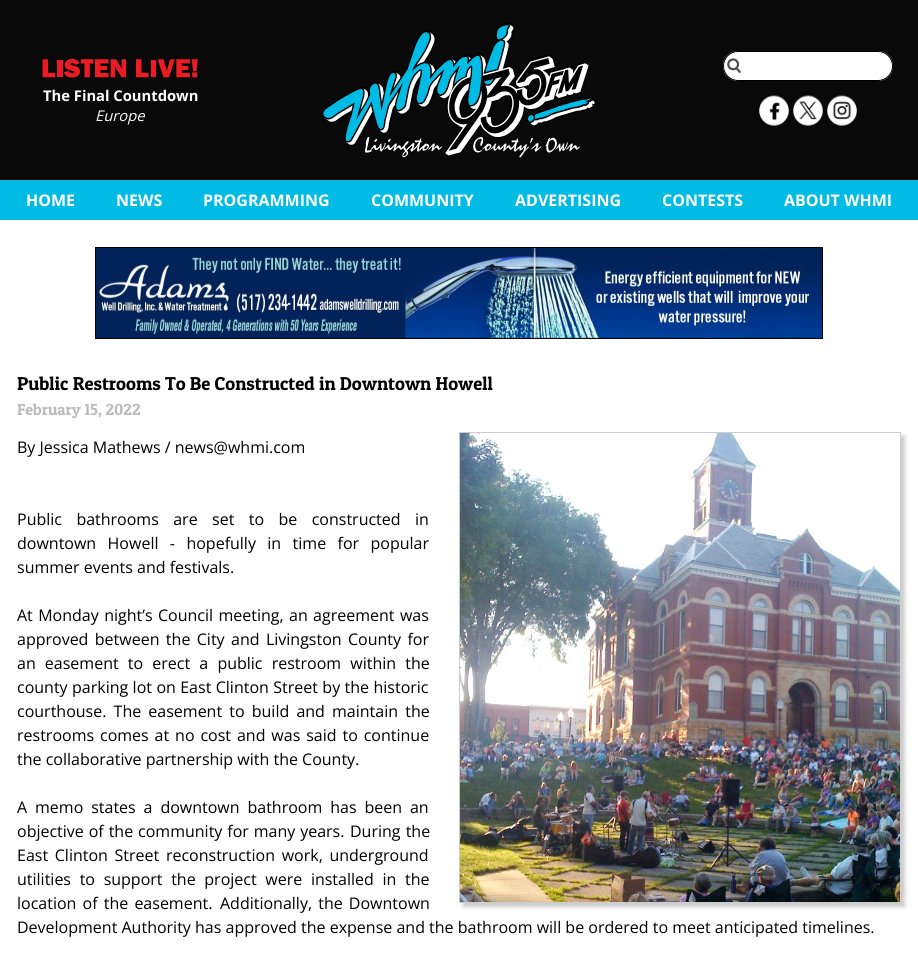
#include <cairo/cairo.h>
#include <math.h>
#include <stddef.h>


static void draw_spaced(cairo_t *cr, double x, double y, const char *s, double letter, double word) {
  cairo_move_to(cr, x, y);
  while (*s) {
    char ch[5] = {0};
    int n = 0;
    do ch[n++] = *s++; while ((*s & 0xC0) == 0x80);
    cairo_show_text(cr, ch);
    cairo_rel_move_to(cr, letter + word * (*ch == ' '), 0);
  }
}

static void rounded_rect(cairo_t *cr, double x, double y, double w, double h, double r) {
  cairo_new_sub_path(cr);
  cairo_arc(cr, x + w - r, y + h - r, r, 0, M_PI / 2);
  cairo_arc(cr, x + r, y + h - r, r, M_PI / 2, M_PI);
  cairo_arc(cr, x + r, y + r, r, M_PI, 1.5 * M_PI);
  cairo_arc(cr, x + w - r, y + r, r, 1.5 * M_PI, 2 * M_PI);
  cairo_close_path(cr);
}

static void draw_shadow(cairo_t *cr, double x, double y, double w, double h, double r, double blur, double alpha) {
  cairo_push_group_with_content(cr, CAIRO_CONTENT_ALPHA);
  cairo_set_operator(cr, CAIRO_OPERATOR_SOURCE);
  for (int i = 15; i >= -15 && fmin(w, h) + blur * i / 3 > 0; i -= 2) {
    double e = blur * i / 6;
    cairo_set_source_rgba(cr, 0, 0, 0, alpha * erfc((i - 1) / 8.5) / 2);
    rounded_rect(cr, x - e, y - e, w + 2 * e, h + 2 * e, fmax(0, fmin(r + e + blur * .6, fmin(w, h) / 2 + e)));
    cairo_fill(cr);
  }
  cairo_pattern_t *soft = cairo_pop_group(cr);
  cairo_mask(cr, soft);
  cairo_pattern_destroy(soft);
}

static void draw_image(cairo_t *cr, const char *path, double x, double y, double w, double h) {
  cairo_surface_t *image = cairo_image_surface_create_from_png(path);
  cairo_save(cr);
  cairo_set_source_surface(cr, image, x, y);
  cairo_rectangle(cr, x, y, w, h);
  cairo_fill(cr);
  cairo_restore(cr);
  cairo_surface_destroy(image);
}

static void draw(cairo_t *cr) {
  cairo_set_source_rgb(cr, 1, 1, 1);
  cairo_paint(cr);
  cairo_set_source_rgb(cr, 9 / 255.0, 9 / 255.0, 9 / 255.0);
  cairo_rectangle(cr, 0, 0, 918, 180);
  cairo_fill(cr);
  draw_image(cr, "images/1.png", 42, 59, 156, 19);
  draw_image(cr, "images/2.png", 322, 23, 274, 135);
  cairo_set_source_rgb(cr, 1, 1, 1);
  rounded_rect(cr, 723, 51, 170, 30, 15);
  cairo_fill(cr);
  draw_image(cr, "images/3.png", 727, 58, 14, 15);
  rounded_rect(cr, 723.5, 51.5, 169, 29, 14.5);
  cairo_set_source_rgb(cr, 0, 0, 0);
  cairo_set_line_width(cr, 1);
  cairo_stroke(cr);
  draw_image(cr, "images/4.png", 759, 95, 30, 31);
  draw_image(cr, "images/5.png", 793, 95, 30, 31);
  draw_image(cr, "images/6.png", 827, 95, 30, 31);
  cairo_set_source_rgb(cr, 0, 187 / 255.0, 228 / 255.0);
  cairo_rectangle(cr, 0, 180, 918, 40);
  cairo_fill(cr);
  draw_image(cr, "images/7.png", 96, 248, 726, 90);
  cairo_rectangle(cr, 95.5, 247.5, 727, 91);
  cairo_set_source_rgb(cr, 0, 0, 0);
  cairo_stroke(cr);
  cairo_set_source_rgb(cr, 204 / 255.0, 204 / 255.0, 204 / 255.0);
  draw_shadow(cr, 463, 436, 442, 471, 0, 2, 1);
  cairo_rectangle(cr, 459.5, 432.5, 441, 470);
  cairo_set_source_rgb(cr, 204 / 255.0, 204 / 255.0, 204 / 255.0);
  cairo_stroke(cr);
  draw_image(cr, "images/8.png", 460, 433, 440, 469);
  cairo_select_font_face(cr, "Open Sans", CAIRO_FONT_SLANT_NORMAL, CAIRO_FONT_WEIGHT_BOLD);
  cairo_set_font_size(cr, 14.75);
  cairo_set_source_rgb(cr, 1, 1, 1);
  cairo_move_to(cr, 43, 101);
  cairo_show_text(cr, "The Final Countdown");
  cairo_select_font_face(cr, "Open Sans", CAIRO_FONT_SLANT_ITALIC, CAIRO_FONT_WEIGHT_NORMAL);
  cairo_move_to(cr, 95, 121);
  cairo_show_text(cr, "Europe");
  cairo_select_font_face(cr, "Open Sans", CAIRO_FONT_SLANT_NORMAL, CAIRO_FONT_WEIGHT_BOLD);
  cairo_set_font_size(cr, 16);
  cairo_move_to(cr, 26, 206);
  cairo_show_text(cr, "HOME");
  cairo_move_to(cr, 116, 206);
  cairo_show_text(cr, "NEWS");
  cairo_move_to(cr, 203, 206);
  cairo_show_text(cr, "PROGRAMMING");
  cairo_move_to(cr, 371, 206);
  cairo_show_text(cr, "COMMUNITY");
  cairo_move_to(cr, 515, 206);
  cairo_show_text(cr, "ADVERTISING");
  cairo_move_to(cr, 662, 206);
  cairo_show_text(cr, "CONTESTS");
  cairo_move_to(cr, 784, 206);
  cairo_show_text(cr, "ABOUT WHMI");
  cairo_select_font_face(cr, "Patua One", CAIRO_FONT_SLANT_NORMAL, CAIRO_FONT_WEIGHT_NORMAL);
  cairo_set_font_size(cr, 18.7);
  cairo_set_source_rgb(cr, 0, 0, 0);
  cairo_move_to(cr, 17, 390);
  cairo_show_text(cr, "Public Restrooms To Be Constructed in Downtown Howell");
  cairo_set_font_size(cr, 16);
  cairo_set_source_rgb(cr, 187 / 255.0, 187 / 255.0, 187 / 255.0);
  cairo_move_to(cr, 17, 415);
  cairo_show_text(cr, "February 15, 2022");
  cairo_select_font_face(cr, "Open Sans", CAIRO_FONT_SLANT_NORMAL, CAIRO_FONT_WEIGHT_NORMAL);
  cairo_set_source_rgb(cr, 0, 0, 0);
  cairo_move_to(cr, 17, 453);
  cairo_show_text(cr, "By Jessica Mathews / news@whmi.com");
  draw_spaced(cr, 17, 525, "Public bathrooms are set to be constructed in", 0, 10.25);
  draw_spaced(cr, 17, 549, "downtown Howell - hopefully in time for popular", 0, 7.25);
  cairo_move_to(cr, 17, 573);
  cairo_show_text(cr, "summer events and festivals.");
  draw_spaced(cr, 17, 621, "At Monday night’s Council meeting, an agreement was", 0, 1.25);
  draw_spaced(cr, 17, 645, "approved between the City and Livingston County for", 0, 2.25);
  draw_spaced(cr, 17, 669, "an easement to erect a public restroom within the", 0, 5);
  draw_spaced(cr, 17, 693, "county parking lot on East Clinton Street by the historic", 0, 0.25);
  draw_spaced(cr, 17, 717, "courthouse. The easement to build and maintain the", 0, 3);
  draw_spaced(cr, 17, 741, "restrooms comes at no cost and was said to continue", 0, 1.75);
  cairo_move_to(cr, 17, 765);
  cairo_show_text(cr, "the collaborative partnership with the County.");
  draw_spaced(cr, 17, 813, "A memo states a downtown bathroom has been an", 0, 3.75);
  draw_spaced(cr, 17, 837, "objective of the community for many years.", 0, 0.75);
  draw_spaced(cr, 350, 837, "During the", 0, 1);
  draw_spaced(cr, 17, 861, "East Clinton Street reconstruction work, underground", 0, 2.5);
  draw_spaced(cr, 17, 885, "utilities to support the project were installed in the", 0, 4.5);
  draw_spaced(cr, 17, 909, "location of the easement.", 0, 2);
  draw_spaced(cr, 220, 909, "Additionally, the Downtown", 0, 2);
  cairo_move_to(cr, 17, 933);
  cairo_show_text(cr, "Development Authority has approved the expense and the bathroom will be ordered to meet anticipated timelines.");
}

int main(void) {
  cairo_surface_t *surface = cairo_image_surface_create(CAIRO_FORMAT_RGB24, 918, 957);
  cairo_t *cr = cairo_create(surface);
  cairo_font_options_t *options = cairo_font_options_create();
  cairo_font_options_set_hint_metrics(options, CAIRO_HINT_METRICS_OFF);
  cairo_font_options_set_hint_style(options, CAIRO_HINT_STYLE_NONE);
  cairo_set_font_options(cr, options);
  cairo_set_miter_limit(cr, 4);
  draw(cr);
  cairo_surface_write_to_png(surface, "out.png");
  cairo_font_options_destroy(options);
  cairo_destroy(cr);
  cairo_surface_destroy(surface);
  return 0;
}
